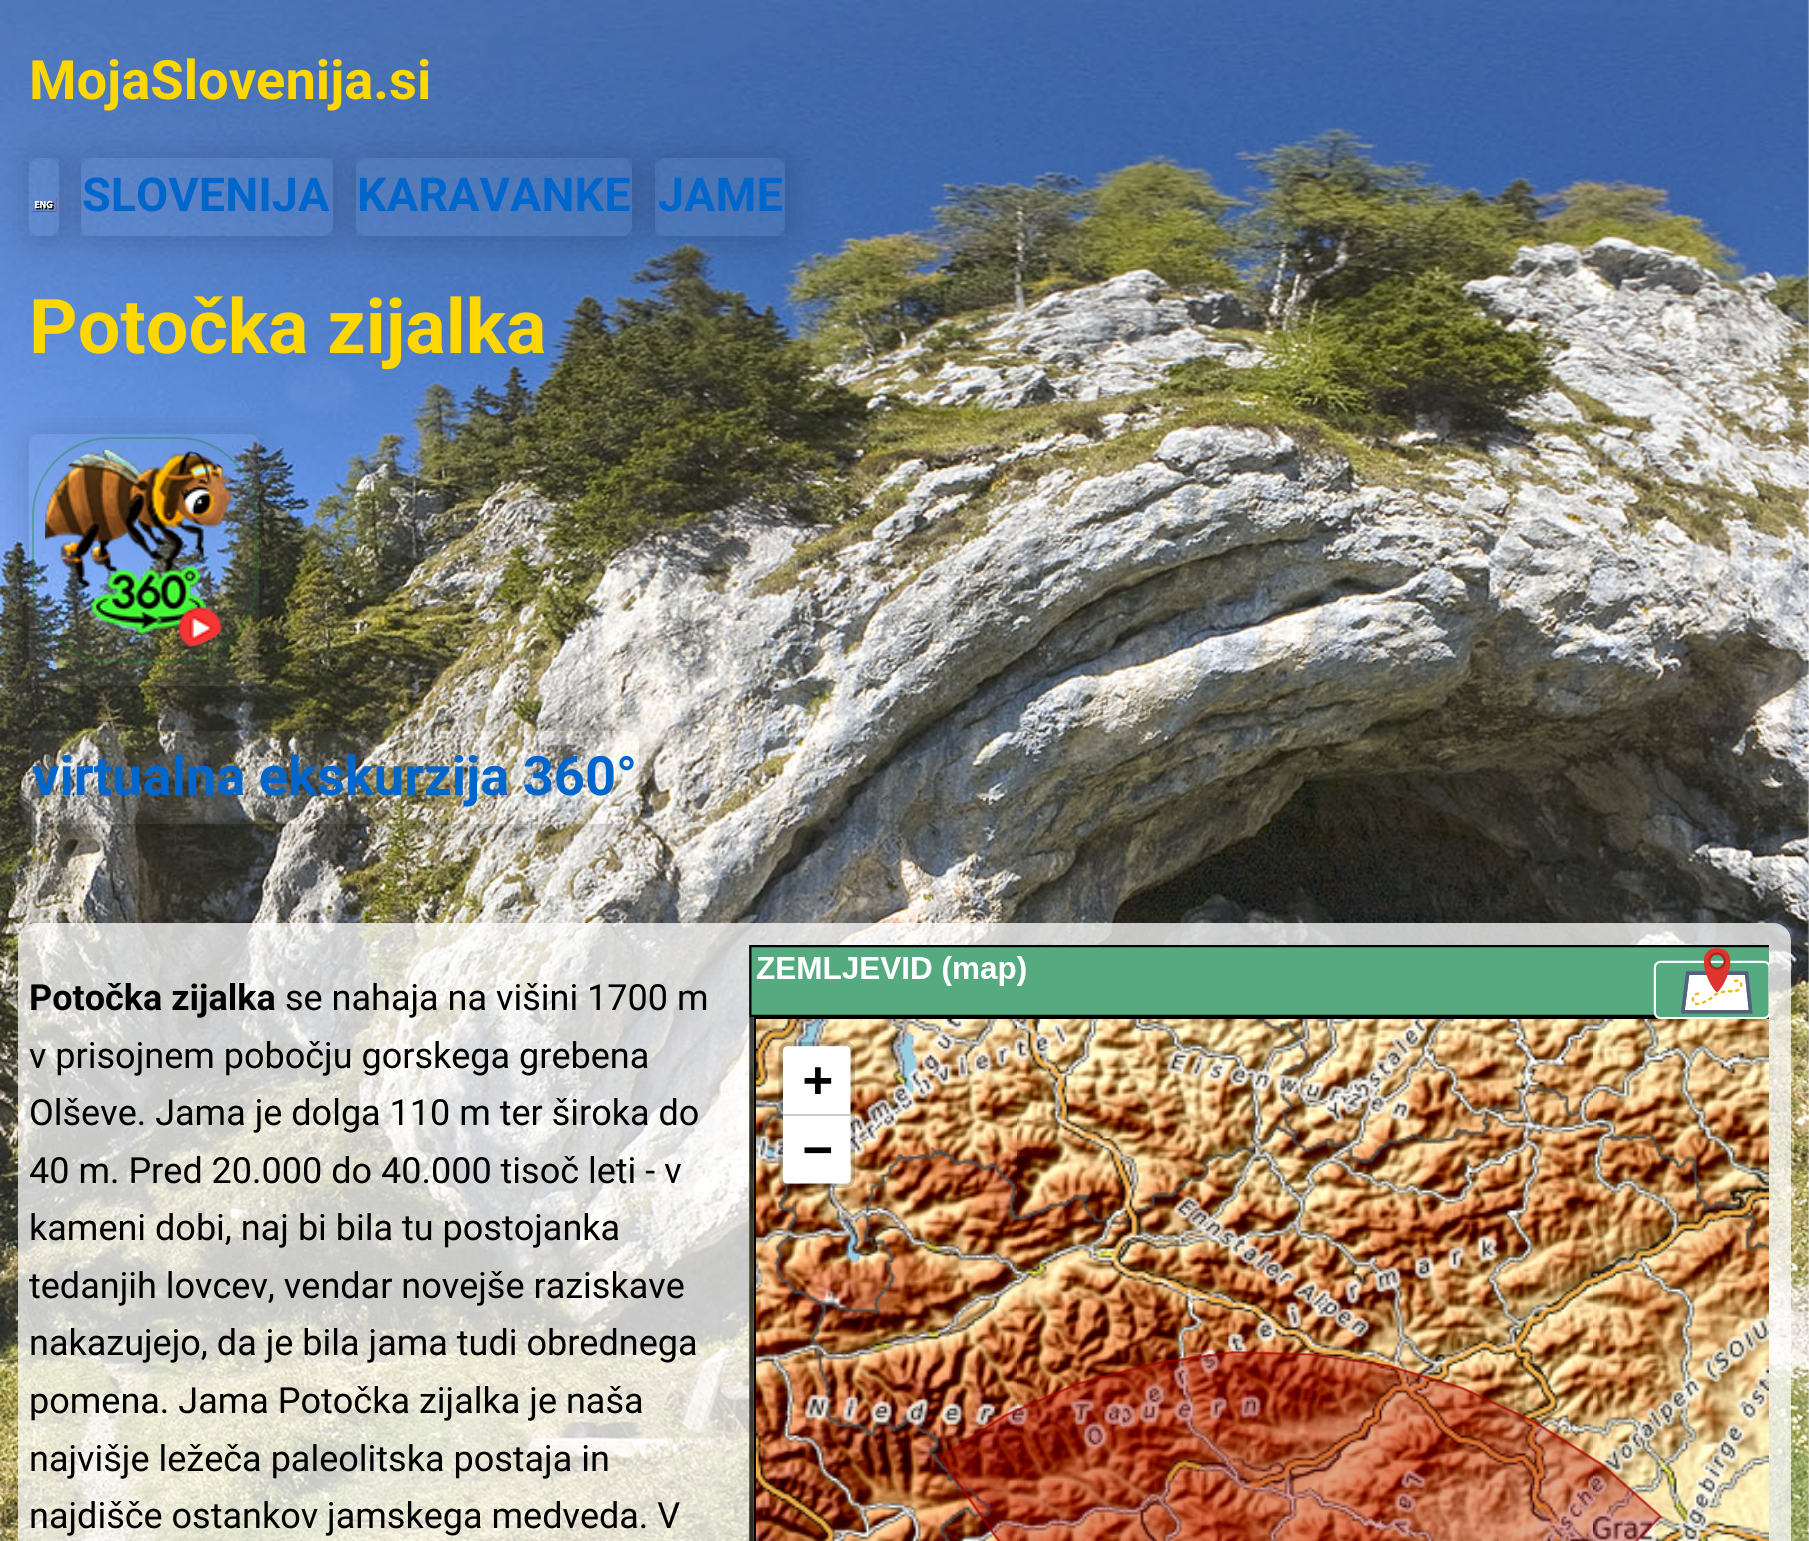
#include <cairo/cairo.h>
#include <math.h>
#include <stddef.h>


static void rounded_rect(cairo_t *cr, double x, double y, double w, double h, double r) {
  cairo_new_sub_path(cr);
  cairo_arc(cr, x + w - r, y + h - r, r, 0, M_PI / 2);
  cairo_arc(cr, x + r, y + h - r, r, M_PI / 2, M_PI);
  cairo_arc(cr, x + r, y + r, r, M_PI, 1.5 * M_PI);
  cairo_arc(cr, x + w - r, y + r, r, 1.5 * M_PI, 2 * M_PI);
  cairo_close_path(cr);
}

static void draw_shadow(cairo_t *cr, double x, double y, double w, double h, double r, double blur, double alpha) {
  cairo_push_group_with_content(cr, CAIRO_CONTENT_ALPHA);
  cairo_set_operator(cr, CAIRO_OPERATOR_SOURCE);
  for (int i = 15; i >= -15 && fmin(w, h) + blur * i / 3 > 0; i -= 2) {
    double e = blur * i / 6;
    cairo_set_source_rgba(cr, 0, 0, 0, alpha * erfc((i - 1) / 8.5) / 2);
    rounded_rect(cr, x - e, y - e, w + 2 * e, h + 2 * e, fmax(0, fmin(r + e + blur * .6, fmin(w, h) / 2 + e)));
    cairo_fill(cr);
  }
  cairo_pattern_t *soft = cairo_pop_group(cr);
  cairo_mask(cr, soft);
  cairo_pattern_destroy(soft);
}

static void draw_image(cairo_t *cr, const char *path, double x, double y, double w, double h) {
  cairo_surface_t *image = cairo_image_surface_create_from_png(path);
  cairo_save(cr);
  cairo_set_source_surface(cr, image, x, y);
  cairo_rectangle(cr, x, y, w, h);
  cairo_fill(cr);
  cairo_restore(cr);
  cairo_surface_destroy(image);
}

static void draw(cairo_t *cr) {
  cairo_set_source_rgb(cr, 1, 1, 1);
  cairo_paint(cr);
  draw_image(cr, "images/1.png", 0, 0, 1809, 1541);
  cairo_save(cr);
  cairo_set_fill_rule(cr, CAIRO_FILL_RULE_EVEN_ODD);
  cairo_new_path(cr);
  cairo_move_to(cr, 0, 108);
  cairo_line_to(cr, 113, 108);
  cairo_line_to(cr, 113, 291);
  cairo_line_to(cr, 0, 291);
  cairo_close_path(cr);
  cairo_move_to(cr, 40, 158);
  cairo_line_to(cr, 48, 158);
  cairo_curve_to(cr, 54, 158, 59, 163, 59, 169);
  cairo_line_to(cr, 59, 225);
  cairo_curve_to(cr, 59, 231, 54, 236, 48, 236);
  cairo_line_to(cr, 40, 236);
  cairo_curve_to(cr, 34, 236, 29, 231, 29, 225);
  cairo_line_to(cr, 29, 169);
  cairo_curve_to(cr, 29, 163, 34, 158, 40, 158);
  cairo_close_path(cr);
  cairo_clip(cr);
  cairo_set_source_rgb(cr, 0, 0, 0);
  draw_shadow(cr, 32, 160, 29, 79, 11, 17, 0.2);
  cairo_restore(cr);
  cairo_set_source_rgba(cr, 1, 1, 1, 0.05);
  cairo_rectangle(cr, 29, 158, 30, 78);
  cairo_fill(cr);
  draw_image(cr, "images/2.png", 31, 198, 26, 14);
  cairo_save(cr);
  cairo_set_fill_rule(cr, CAIRO_FILL_RULE_EVEN_ODD);
  cairo_new_path(cr);
  cairo_move_to(cr, 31, 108);
  cairo_line_to(cr, 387, 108);
  cairo_line_to(cr, 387, 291);
  cairo_line_to(cr, 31, 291);
  cairo_close_path(cr);
  cairo_move_to(cr, 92, 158);
  cairo_line_to(cr, 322, 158);
  cairo_curve_to(cr, 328, 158, 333, 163, 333, 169);
  cairo_line_to(cr, 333, 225);
  cairo_curve_to(cr, 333, 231, 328, 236, 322, 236);
  cairo_line_to(cr, 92, 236);
  cairo_curve_to(cr, 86, 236, 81, 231, 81, 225);
  cairo_line_to(cr, 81, 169);
  cairo_curve_to(cr, 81, 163, 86, 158, 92, 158);
  cairo_close_path(cr);
  cairo_clip(cr);
  cairo_set_source_rgb(cr, 0, 0, 0);
  draw_shadow(cr, 83, 160, 252, 79, 11, 17, 0.2);
  cairo_restore(cr);
  cairo_rectangle(cr, 81, 158, 252, 78);
  cairo_fill(cr);
  cairo_save(cr);
  cairo_set_fill_rule(cr, CAIRO_FILL_RULE_EVEN_ODD);
  cairo_new_path(cr);
  cairo_move_to(cr, 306, 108);
  cairo_line_to(cr, 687, 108);
  cairo_line_to(cr, 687, 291);
  cairo_line_to(cr, 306, 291);
  cairo_close_path(cr);
  cairo_move_to(cr, 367, 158);
  cairo_line_to(cr, 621, 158);
  cairo_curve_to(cr, 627, 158, 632, 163, 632, 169);
  cairo_line_to(cr, 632, 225);
  cairo_curve_to(cr, 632, 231, 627, 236, 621, 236);
  cairo_line_to(cr, 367, 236);
  cairo_curve_to(cr, 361, 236, 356, 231, 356, 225);
  cairo_line_to(cr, 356, 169);
  cairo_curve_to(cr, 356, 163, 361, 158, 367, 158);
  cairo_close_path(cr);
  cairo_clip(cr);
  cairo_set_source_rgb(cr, 0, 0, 0);
  draw_shadow(cr, 358, 160, 277, 79, 11, 17, 0.2);
  cairo_restore(cr);
  cairo_rectangle(cr, 356, 158, 276, 78);
  cairo_fill(cr);
  cairo_save(cr);
  cairo_set_fill_rule(cr, CAIRO_FILL_RULE_EVEN_ODD);
  cairo_new_path(cr);
  cairo_move_to(cr, 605, 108);
  cairo_line_to(cr, 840, 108);
  cairo_line_to(cr, 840, 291);
  cairo_line_to(cr, 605, 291);
  cairo_close_path(cr);
  cairo_move_to(cr, 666, 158);
  cairo_line_to(cr, 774, 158);
  cairo_curve_to(cr, 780, 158, 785, 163, 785, 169);
  cairo_line_to(cr, 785, 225);
  cairo_curve_to(cr, 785, 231, 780, 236, 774, 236);
  cairo_line_to(cr, 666, 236);
  cairo_curve_to(cr, 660, 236, 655, 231, 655, 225);
  cairo_line_to(cr, 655, 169);
  cairo_curve_to(cr, 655, 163, 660, 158, 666, 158);
  cairo_close_path(cr);
  cairo_clip(cr);
  cairo_set_source_rgb(cr, 0, 0, 0);
  draw_shadow(cr, 657, 160, 131, 79, 11, 17, 0.2);
  cairo_restore(cr);
  cairo_rectangle(cr, 655, 158, 130, 78);
  cairo_fill(cr);
  cairo_rectangle(cr, 1775, 205, 5, 5);
  cairo_fill(cr);
  cairo_save(cr);
  cairo_set_fill_rule(cr, CAIRO_FILL_RULE_EVEN_ODD);
  cairo_new_path(cr);
  cairo_move_to(cr, 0, 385);
  cairo_line_to(cr, 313, 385);
  cairo_line_to(cr, 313, 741);
  cairo_line_to(cr, 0, 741);
  cairo_close_path(cr);
  cairo_move_to(cr, 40, 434);
  cairo_line_to(cr, 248, 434);
  cairo_curve_to(cr, 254, 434, 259, 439, 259, 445);
  cairo_line_to(cr, 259, 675);
  cairo_curve_to(cr, 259, 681, 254, 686, 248, 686);
  cairo_line_to(cr, 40, 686);
  cairo_curve_to(cr, 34, 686, 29, 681, 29, 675);
  cairo_line_to(cr, 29, 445);
  cairo_curve_to(cr, 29, 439, 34, 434, 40, 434);
  cairo_close_path(cr);
  cairo_clip(cr);
  cairo_set_source_rgb(cr, 0, 0, 0);
  draw_shadow(cr, 32, 437, 229, 252, 11, 17, 0.2);
  cairo_restore(cr);
  cairo_rectangle(cr, 29, 434, 230, 252);
  cairo_fill(cr);
  rounded_rect(cr, 33, 438, 223, 223, 78);
  cairo_set_source_rgba(cr, 0, 128 / 255.0, 0, 0.3);
  cairo_stroke(cr);
  draw_image(cr, "images/3.png", 45, 450, 191, 197);
  cairo_save(cr);
  cairo_set_fill_rule(cr, CAIRO_FILL_RULE_EVEN_ODD);
  cairo_new_path(cr);
  cairo_move_to(cr, 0, 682);
  cairo_line_to(cr, 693, 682);
  cairo_line_to(cr, 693, 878);
  cairo_line_to(cr, 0, 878);
  cairo_close_path(cr);
  cairo_move_to(cr, 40, 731);
  cairo_line_to(cr, 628, 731);
  cairo_curve_to(cr, 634, 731, 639, 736, 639, 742);
  cairo_line_to(cr, 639, 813);
  cairo_curve_to(cr, 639, 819, 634, 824, 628, 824);
  cairo_line_to(cr, 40, 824);
  cairo_curve_to(cr, 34, 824, 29, 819, 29, 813);
  cairo_line_to(cr, 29, 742);
  cairo_curve_to(cr, 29, 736, 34, 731, 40, 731);
  cairo_close_path(cr);
  cairo_clip(cr);
  cairo_set_source_rgb(cr, 0, 0, 0);
  draw_shadow(cr, 32, 734, 609, 92, 11, 17, 0.2);
  cairo_restore(cr);
  cairo_set_source_rgba(cr, 1, 1, 1, 0.05);
  cairo_rectangle(cr, 29, 731, 610, 93);
  cairo_fill(cr);
  cairo_rectangle(cr, 1442, 306, 5, 5);
  cairo_fill(cr);
  cairo_set_source_rgba(cr, 1, 1, 1, 0.75);
  rounded_rect(cr, 18, 923, 1773, 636, 18);
  cairo_fill(cr);
  draw_image(cr, "images/4.png", 749, 945, 1020, 596);
  cairo_select_font_face(cr, "Roboto", CAIRO_FONT_SLANT_NORMAL, CAIRO_FONT_WEIGHT_BOLD);
  cairo_set_font_size(cr, 54.25);
  cairo_set_source_rgb(cr, 1, 215 / 255.0, 0);
  cairo_move_to(cr, 29, 99);
  cairo_show_text(cr, "MojaSlovenija.si");
  cairo_set_font_size(cr, 46.75);
  cairo_set_source_rgb(cr, 0, 102 / 255.0, 204 / 255.0);
  cairo_move_to(cr, 82, 211);
  cairo_show_text(cr, "SLOVENIJA");
  cairo_move_to(cr, 357, 211);
  cairo_show_text(cr, "KARAVANKE");
  cairo_move_to(cr, 658, 211);
  cairo_show_text(cr, "JAME");
  cairo_set_font_size(cr, 75.5);
  cairo_set_source_rgb(cr, 1, 215 / 255.0, 0);
  cairo_move_to(cr, 29, 353);
  cairo_show_text(cr, "Potočka zijalka");
  cairo_set_font_size(cr, 54.25);
  cairo_set_source_rgb(cr, 0, 102 / 255.0, 204 / 255.0);
  cairo_move_to(cr, 32, 795);
  cairo_show_text(cr, "virtualna ekskurzija 360°");
  cairo_set_font_size(cr, 36);
  cairo_set_source_rgb(cr, 0, 0, 0);
  cairo_move_to(cr, 29, 1010);
  cairo_show_text(cr, "Potočka zijalka");
  cairo_select_font_face(cr, "Roboto", CAIRO_FONT_SLANT_NORMAL, CAIRO_FONT_WEIGHT_NORMAL);
  cairo_move_to(cr, 285, 1010);
  cairo_show_text(cr, "se nahaja na višini 1700 m");
  cairo_move_to(cr, 29, 1068);
  cairo_show_text(cr, "v prisojnem pobočju gorskega grebena");
  cairo_move_to(cr, 29, 1125);
  cairo_show_text(cr, "Olševe. Jama je dolga 110 m ter široka do");
  cairo_move_to(cr, 29, 1183);
  cairo_show_text(cr, "40 m. Pred 20.000 do 40.000 tisoč leti - v");
  cairo_move_to(cr, 29, 1240);
  cairo_show_text(cr, "kameni dobi, naj bi bila tu postojanka");
  cairo_move_to(cr, 29, 1298);
  cairo_show_text(cr, "tedanjih lovcev, vendar novejše raziskave");
  cairo_move_to(cr, 29, 1355);
  cairo_show_text(cr, "nakazujejo, da je bila jama tudi obrednega");
  cairo_move_to(cr, 29, 1413);
  cairo_show_text(cr, "pomena. Jama Potočka zijalka je naša");
  cairo_move_to(cr, 29, 1471);
  cairo_show_text(cr, "najvišje ležeča paleolitska postaja in");
  cairo_move_to(cr, 29, 1528);
  cairo_show_text(cr, "najdišče ostankov jamskega medveda. V");
}

int main(void) {
  cairo_surface_t *surface = cairo_image_surface_create(CAIRO_FORMAT_RGB24, 1809, 1541);
  cairo_t *cr = cairo_create(surface);
  cairo_font_options_t *options = cairo_font_options_create();
  cairo_font_options_set_hint_metrics(options, CAIRO_HINT_METRICS_OFF);
  cairo_font_options_set_hint_style(options, CAIRO_HINT_STYLE_NONE);
  cairo_set_font_options(cr, options);
  cairo_set_miter_limit(cr, 4);
  draw(cr);
  cairo_surface_write_to_png(surface, "out.png");
  cairo_font_options_destroy(options);
  cairo_destroy(cr);
  cairo_surface_destroy(surface);
  return 0;
}
